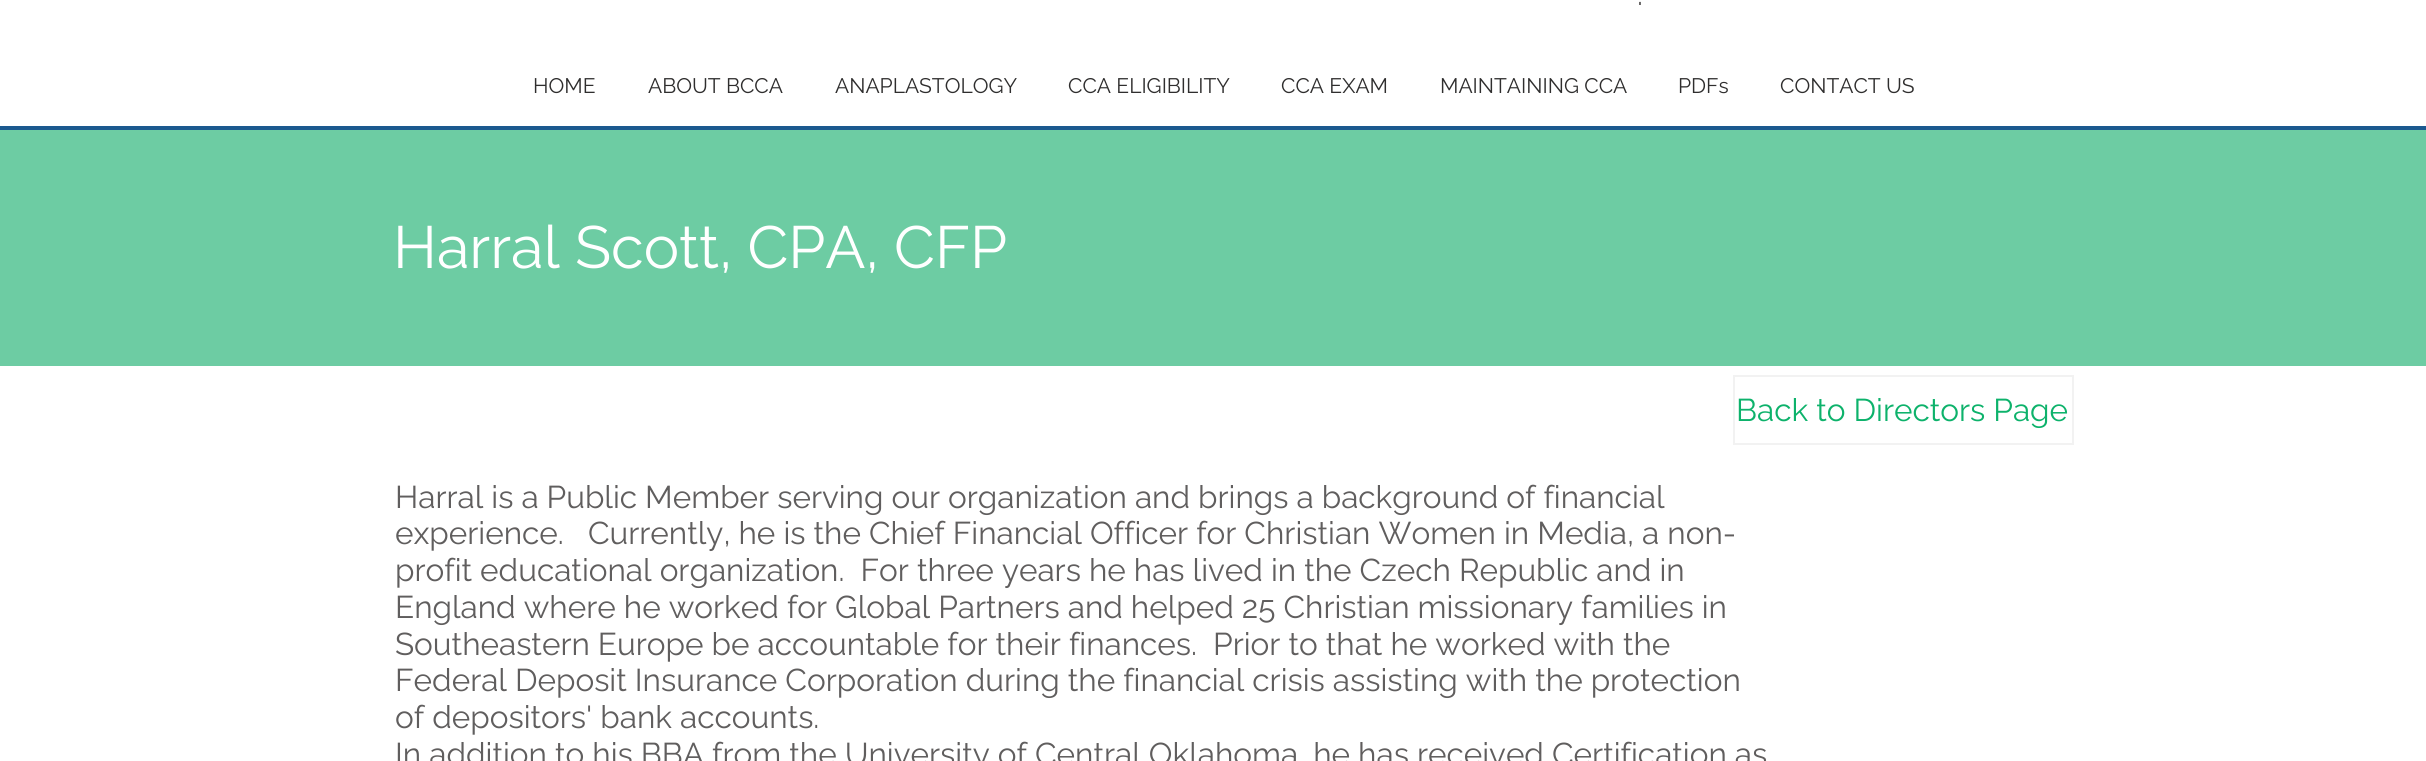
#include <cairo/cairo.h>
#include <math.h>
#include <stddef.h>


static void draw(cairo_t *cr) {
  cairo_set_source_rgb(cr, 1, 1, 1);
  cairo_paint(cr);
  cairo_set_source_rgb(cr, 27 / 255.0, 89 / 255.0, 143 / 255.0);
  cairo_rectangle(cr, 0, 126, 2426, 4);
  cairo_fill(cr);
  cairo_set_source_rgb(cr, 109 / 255.0, 204 / 255.0, 163 / 255.0);
  cairo_rectangle(cr, 0, 130, 2426, 236);
  cairo_fill(cr);
  cairo_rectangle(cr, 1734, 376, 339, 68);
  cairo_set_source_rgb(cr, 242 / 255.0, 242 / 255.0, 242 / 255.0);
  cairo_stroke(cr);
  cairo_select_font_face(cr, "Raleway", CAIRO_FONT_SLANT_NORMAL, CAIRO_FONT_WEIGHT_NORMAL);
  cairo_set_font_size(cr, 31.5);
  cairo_set_source_rgb(cr, 96 / 255.0, 94 / 255.0, 94 / 255.0);
  cairo_move_to(cr, 1637, 5);
  cairo_show_text(cr, ".");
  cairo_set_font_size(cr, 21);
  cairo_set_source_rgb(cr, 47 / 255.0, 46 / 255.0, 46 / 255.0);
  cairo_move_to(cr, 533, 93);
  cairo_show_text(cr, "HOME");
  cairo_move_to(cr, 648, 93);
  cairo_show_text(cr, "ABOUT BCCA");
  cairo_move_to(cr, 835, 93);
  cairo_show_text(cr, "ANAPLASTOLOGY");
  cairo_move_to(cr, 1068, 93);
  cairo_show_text(cr, "CCA ELIGIBILITY");
  cairo_move_to(cr, 1281, 93);
  cairo_show_text(cr, "CCA EXAM");
  cairo_move_to(cr, 1440, 93);
  cairo_show_text(cr, "MAINTAINING CCA");
  cairo_move_to(cr, 1678, 93);
  cairo_show_text(cr, "PDFs");
  cairo_move_to(cr, 1780, 93);
  cairo_show_text(cr, "CONTACT US");
  cairo_set_font_size(cr, 59.5);
  cairo_set_source_rgb(cr, 1, 1, 1);
  cairo_move_to(cr, 393, 268);
  cairo_show_text(cr, "Harral Scott, CPA, CFP");
  cairo_set_font_size(cr, 31.5);
  cairo_set_source_rgb(cr, 13 / 255.0, 178 / 255.0, 107 / 255.0);
  cairo_move_to(cr, 1736, 421);
  cairo_show_text(cr, "Back to Directors Page");
  cairo_set_source_rgb(cr, 96 / 255.0, 94 / 255.0, 94 / 255.0);
  cairo_move_to(cr, 395, 508);
  cairo_show_text(cr, "Harral is a Public Member serving our organization and brings a background of financial");
  cairo_move_to(cr, 395, 544);
  cairo_show_text(cr, "experience.   Currently, he is the Chief Financial Officer for Christian Women in Media, a non-");
  cairo_move_to(cr, 395, 581);
  cairo_show_text(cr, "profit educational organization.  For three years he has lived in the Czech Republic and in");
  cairo_move_to(cr, 395, 618);
  cairo_show_text(cr, "England where he worked for Global Partners and helped 25 Christian missionary families in");
  cairo_move_to(cr, 395, 655);
  cairo_show_text(cr, "Southeastern Europe be accountable for their finances.  Prior to that he worked with the");
  cairo_move_to(cr, 395, 691);
  cairo_show_text(cr, "Federal Deposit Insurance Corporation during the financial crisis assisting with the protection");
  cairo_move_to(cr, 395, 728);
  cairo_show_text(cr, "of depositors' bank accounts.");
  cairo_move_to(cr, 395, 765);
  cairo_show_text(cr, "In addition to his BBA from the University of Central Oklahoma, he has received Certification as");
}

int main(void) {
  cairo_surface_t *surface = cairo_image_surface_create(CAIRO_FORMAT_RGB24, 2426, 761);
  cairo_t *cr = cairo_create(surface);
  cairo_font_options_t *options = cairo_font_options_create();
  cairo_font_options_set_hint_metrics(options, CAIRO_HINT_METRICS_OFF);
  cairo_font_options_set_hint_style(options, CAIRO_HINT_STYLE_NONE);
  cairo_set_font_options(cr, options);
  cairo_set_miter_limit(cr, 4);
  draw(cr);
  cairo_surface_write_to_png(surface, "out.png");
  cairo_font_options_destroy(options);
  cairo_destroy(cr);
  cairo_surface_destroy(surface);
  return 0;
}
